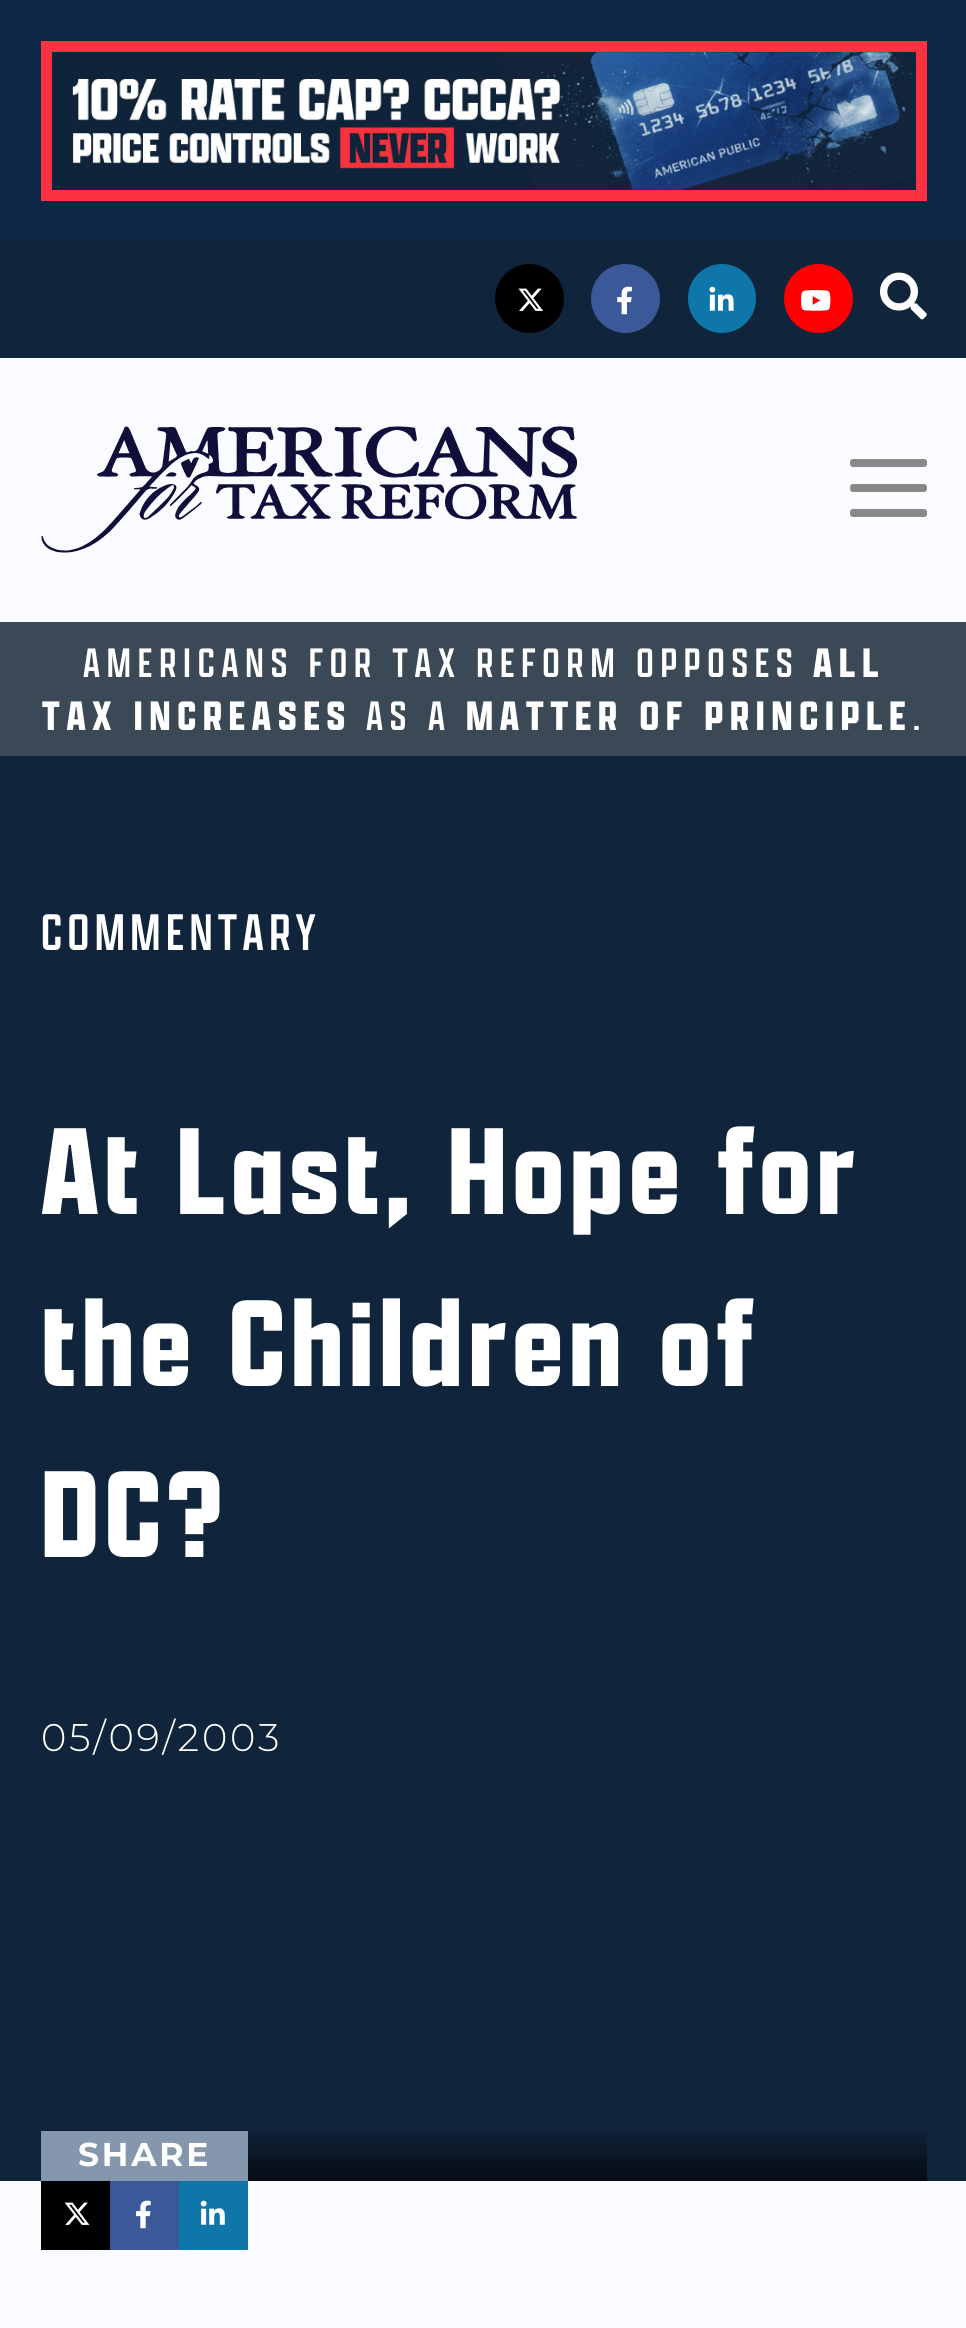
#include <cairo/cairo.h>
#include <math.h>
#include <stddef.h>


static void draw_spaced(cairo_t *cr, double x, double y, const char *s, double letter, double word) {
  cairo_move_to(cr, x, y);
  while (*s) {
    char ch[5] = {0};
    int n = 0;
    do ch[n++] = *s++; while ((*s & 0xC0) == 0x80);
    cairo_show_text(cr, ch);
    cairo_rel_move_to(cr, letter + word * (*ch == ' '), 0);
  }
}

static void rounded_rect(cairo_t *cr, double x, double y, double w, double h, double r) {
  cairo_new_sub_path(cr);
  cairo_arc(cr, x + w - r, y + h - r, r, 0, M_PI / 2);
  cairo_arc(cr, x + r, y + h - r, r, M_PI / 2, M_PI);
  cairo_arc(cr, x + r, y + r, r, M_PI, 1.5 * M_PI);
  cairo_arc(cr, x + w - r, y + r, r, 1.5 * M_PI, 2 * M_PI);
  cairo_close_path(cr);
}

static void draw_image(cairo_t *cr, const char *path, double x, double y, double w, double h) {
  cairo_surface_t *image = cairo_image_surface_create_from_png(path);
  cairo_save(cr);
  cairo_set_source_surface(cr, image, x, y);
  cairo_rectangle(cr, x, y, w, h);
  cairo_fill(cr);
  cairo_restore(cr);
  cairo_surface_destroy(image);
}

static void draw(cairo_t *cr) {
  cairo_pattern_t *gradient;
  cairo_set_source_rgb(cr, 250 / 255.0, 251 / 255.0, 1);
  cairo_paint(cr);
  cairo_set_source_rgb(cr, 13 / 255.0, 40 / 255.0, 69 / 255.0);
  cairo_rectangle(cr, 0, 0, 966, 242);
  cairo_fill(cr);
  cairo_rectangle(cr, 46.5, 46.5, 875, 149);
  cairo_set_source_rgb(cr, 253 / 255.0, 50 / 255.0, 65 / 255.0);
  cairo_set_line_width(cr, 11);
  cairo_stroke(cr);
  draw_image(cr, "images/1.png", 52, 52, 864, 138);
  cairo_set_source_rgb(cr, 16 / 255.0, 36 / 255.0, 59 / 255.0);
  cairo_rectangle(cr, 0, 242, 966, 116);
  cairo_fill(cr);
  cairo_set_source_rgb(cr, 0, 0, 0);
  cairo_arc(cr, 529.5, 298.5, 33, 0, 2 * M_PI);
  cairo_fill_preserve(cr);
  cairo_set_line_width(cr, 3);
  cairo_stroke(cr);
  draw_image(cr, "images/2.png", 518, 288, 25, 23);
  cairo_set_source_rgb(cr, 59 / 255.0, 89 / 255.0, 152 / 255.0);
  cairo_arc(cr, 625.5, 298.5, 33, 0, 2 * M_PI);
  cairo_fill_preserve(cr);
  cairo_stroke(cr);
  draw_image(cr, "images/3.png", 617, 286, 15, 29);
  cairo_set_source_rgb(cr, 14 / 255.0, 118 / 255.0, 168 / 255.0);
  rounded_rect(cr, 689.5, 265.5, 65, 66, 32.5);
  cairo_fill_preserve(cr);
  cairo_stroke(cr);
  draw_image(cr, "images/4.png", 709, 286, 25, 25);
  cairo_set_source_rgb(cr, 1, 0, 0);
  cairo_arc(cr, 818.5, 298.5, 33, 0, 2 * M_PI);
  cairo_fill_preserve(cr);
  cairo_stroke(cr);
  draw_image(cr, "images/5.png", 801, 290, 30, 21);
  draw_image(cr, "images/6.png", 880, 272, 47, 48);
  draw_image(cr, "images/7.png", 41, 426, 537, 127);
  cairo_set_source_rgb(cr, 136 / 255.0, 136 / 255.0, 136 / 255.0);
  rounded_rect(cr, 850, 459, 77, 8, 3);
  cairo_fill(cr);
  rounded_rect(cr, 850, 484, 77, 8, 3);
  cairo_fill(cr);
  rounded_rect(cr, 850, 509, 77, 8, 3);
  cairo_fill(cr);
  cairo_set_source_rgb(cr, 16 / 255.0, 36 / 255.0, 59 / 255.0);
  cairo_rectangle(cr, 0, 756, 966, 1425);
  cairo_fill(cr);
  cairo_set_source_rgb(cr, 59 / 255.0, 72 / 255.0, 86 / 255.0);
  cairo_rectangle(cr, 0, 622, 966, 134);
  cairo_fill(cr);
  gradient = cairo_pattern_create_linear(484, 1906, 484, 2181);
  cairo_pattern_add_color_stop_rgba(gradient, 0.8, 16 / 255.0, 36 / 255.0, 59 / 255.0, 1);
  cairo_pattern_add_color_stop_rgba(gradient, 1, 5 / 255.0, 11 / 255.0, 18 / 255.0, 1);
  cairo_set_source(cr, gradient);
  cairo_pattern_destroy(gradient);
  cairo_rectangle(cr, 41, 2129, 886, 52);
  cairo_fill(cr);
  cairo_set_source_rgb(cr, 132 / 255.0, 151 / 255.0, 173 / 255.0);
  cairo_rectangle(cr, 41, 2131, 207, 50);
  cairo_fill(cr);
  cairo_set_source_rgb(cr, 0, 0, 0);
  cairo_rectangle(cr, 41, 2181, 69, 69);
  cairo_fill(cr);
  draw_image(cr, "images/8.png", 64, 2202, 26, 23);
  cairo_set_source_rgb(cr, 59 / 255.0, 89 / 255.0, 152 / 255.0);
  cairo_rectangle(cr, 110, 2181, 69, 69);
  cairo_fill(cr);
  draw_image(cr, "images/9.png", 136, 2200, 15, 29);
  cairo_set_source_rgb(cr, 14 / 255.0, 118 / 255.0, 168 / 255.0);
  cairo_rectangle(cr, 179, 2181, 69, 69);
  cairo_fill(cr);
  draw_image(cr, "images/10.png", 200, 2200, 25, 25);
  cairo_select_font_face(cr, "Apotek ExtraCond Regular", CAIRO_FONT_SLANT_NORMAL, CAIRO_FONT_WEIGHT_NORMAL);
  cairo_set_font_size(cr, 44);
  cairo_set_source_rgb(cr, 1, 1, 1);
  draw_spaced(cr, 83, 677, "AMERICANS FOR TAX REFORM OPPOSES", 6.9, 0);
  cairo_select_font_face(cr, "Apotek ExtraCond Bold", CAIRO_FONT_SLANT_NORMAL, CAIRO_FONT_WEIGHT_BOLD);
  draw_spaced(cr, 813, 677, "ALL", 6.9, 0);
  draw_spaced(cr, 42, 730, "TAX INCREASES", 6.9, 0);
  cairo_select_font_face(cr, "Apotek ExtraCond Regular", CAIRO_FONT_SLANT_NORMAL, CAIRO_FONT_WEIGHT_NORMAL);
  draw_spaced(cr, 366, 730, "AS A", 6.9, 0);
  cairo_select_font_face(cr, "Apotek ExtraCond Bold", CAIRO_FONT_SLANT_NORMAL, CAIRO_FONT_WEIGHT_BOLD);
  draw_spaced(cr, 466, 730, "MATTER OF PRINCIPLE", 6.9, 0);
  cairo_select_font_face(cr, "Apotek ExtraCond Regular", CAIRO_FONT_SLANT_NORMAL, CAIRO_FONT_WEIGHT_NORMAL);
  draw_spaced(cr, 913, 730, ".", 6.9, 0);
  cairo_set_font_size(cr, 55);
  draw_spaced(cr, 41, 950, "COMMENTARY", 5.5, 0);
  cairo_select_font_face(cr, "Apotek ExtraCond Bold", CAIRO_FONT_SLANT_NORMAL, CAIRO_FONT_WEIGHT_BOLD);
  cairo_set_font_size(cr, 132);
  draw_spaced(cr, 41, 1214, "At Last, Hope for", 5.5, 0);
  draw_spaced(cr, 41, 1386, "the Children of", 5.5, 0);
  draw_spaced(cr, 41, 1557, "DC?", 5.5, 0);
  cairo_select_font_face(cr, "Montserrat Light", CAIRO_FONT_SLANT_NORMAL, CAIRO_FONT_WEIGHT_NORMAL);
  cairo_set_font_size(cr, 38.5);
  draw_spaced(cr, 41, 1751, "05/09/2003", 2.75, 0);
  cairo_select_font_face(cr, "Montserrat", CAIRO_FONT_SLANT_NORMAL, CAIRO_FONT_WEIGHT_BOLD);
  cairo_set_font_size(cr, 33);
  draw_spaced(cr, 78, 2166, "SHARE", 2.75, 0);
}

int main(void) {
  cairo_surface_t *surface = cairo_image_surface_create(CAIRO_FORMAT_RGB24, 966, 2328);
  cairo_t *cr = cairo_create(surface);
  cairo_font_options_t *options = cairo_font_options_create();
  cairo_font_options_set_hint_metrics(options, CAIRO_HINT_METRICS_OFF);
  cairo_font_options_set_hint_style(options, CAIRO_HINT_STYLE_NONE);
  cairo_set_font_options(cr, options);
  cairo_set_miter_limit(cr, 4);
  draw(cr);
  cairo_surface_write_to_png(surface, "out.png");
  cairo_font_options_destroy(options);
  cairo_destroy(cr);
  cairo_surface_destroy(surface);
  return 0;
}
